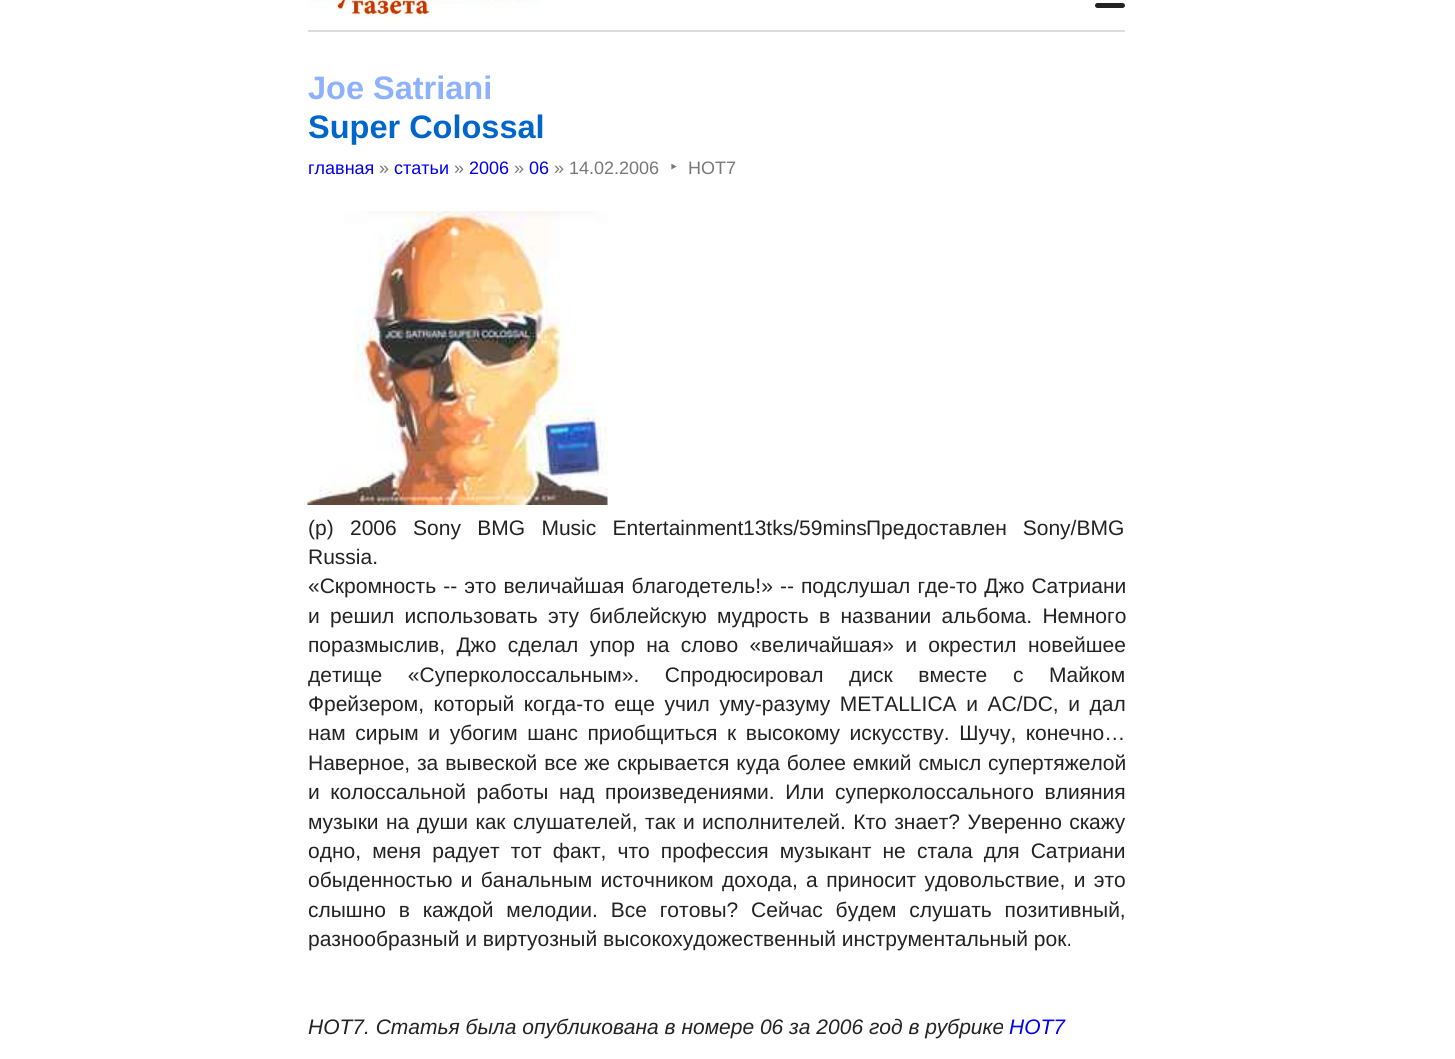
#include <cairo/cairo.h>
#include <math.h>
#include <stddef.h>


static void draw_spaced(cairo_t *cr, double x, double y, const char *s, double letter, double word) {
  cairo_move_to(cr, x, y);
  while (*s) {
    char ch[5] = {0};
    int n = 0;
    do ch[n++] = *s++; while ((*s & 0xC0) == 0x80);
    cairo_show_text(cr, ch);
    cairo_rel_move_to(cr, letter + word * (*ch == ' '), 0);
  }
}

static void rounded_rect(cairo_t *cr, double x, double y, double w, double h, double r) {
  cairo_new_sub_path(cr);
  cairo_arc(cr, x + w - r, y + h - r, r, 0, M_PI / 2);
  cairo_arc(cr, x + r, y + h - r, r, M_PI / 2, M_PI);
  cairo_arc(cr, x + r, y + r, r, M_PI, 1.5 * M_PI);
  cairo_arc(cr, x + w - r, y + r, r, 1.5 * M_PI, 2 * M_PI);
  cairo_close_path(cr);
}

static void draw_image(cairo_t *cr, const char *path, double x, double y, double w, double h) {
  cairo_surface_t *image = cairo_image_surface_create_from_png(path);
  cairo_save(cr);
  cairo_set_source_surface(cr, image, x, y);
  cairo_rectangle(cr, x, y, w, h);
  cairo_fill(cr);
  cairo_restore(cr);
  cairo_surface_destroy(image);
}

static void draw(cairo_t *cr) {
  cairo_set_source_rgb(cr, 1, 1, 1);
  cairo_paint(cr);
  cairo_set_source_rgb(cr, 221 / 255.0, 221 / 255.0, 221 / 255.0);
  cairo_rectangle(cr, 308, 30, 817, 2);
  cairo_fill(cr);
  draw_image(cr, "images/1.png", 308, 0, 233, 18);
  cairo_set_source_rgb(cr, 34 / 255.0, 34 / 255.0, 34 / 255.0);
  rounded_rect(cr, 1095, 3, 30, 5, 2.5);
  cairo_fill(cr);
  draw_image(cr, "images/2.png", 307, 211, 301, 294);
  cairo_select_font_face(cr, "Liberation Sans", CAIRO_FONT_SLANT_NORMAL, CAIRO_FONT_WEIGHT_BOLD);
  cairo_set_font_size(cr, 32.5);
  cairo_set_source_rgb(cr, 141 / 255.0, 177 / 255.0, 253 / 255.0);
  cairo_move_to(cr, 308, 99);
  cairo_show_text(cr, "Joe Satriani");
  cairo_set_source_rgb(cr, 0, 102 / 255.0, 204 / 255.0);
  cairo_move_to(cr, 308, 138);
  cairo_show_text(cr, "Super Colossal");
  cairo_select_font_face(cr, "Liberation Sans", CAIRO_FONT_SLANT_NORMAL, CAIRO_FONT_WEIGHT_NORMAL);
  cairo_set_font_size(cr, 18);
  cairo_set_source_rgb(cr, 0, 0, 238 / 255.0);
  cairo_move_to(cr, 308, 174);
  cairo_show_text(cr, "главная");
  cairo_set_source_rgb(cr, 119 / 255.0, 119 / 255.0, 119 / 255.0);
  cairo_move_to(cr, 379, 174);
  cairo_show_text(cr, "»");
  cairo_set_source_rgb(cr, 0, 0, 238 / 255.0);
  cairo_move_to(cr, 394, 174);
  cairo_show_text(cr, "статьи");
  cairo_set_source_rgb(cr, 119 / 255.0, 119 / 255.0, 119 / 255.0);
  cairo_move_to(cr, 454, 174);
  cairo_show_text(cr, "»");
  cairo_set_source_rgb(cr, 0, 0, 238 / 255.0);
  cairo_move_to(cr, 469, 174);
  cairo_show_text(cr, "2006");
  cairo_set_source_rgb(cr, 119 / 255.0, 119 / 255.0, 119 / 255.0);
  cairo_move_to(cr, 514, 174);
  cairo_show_text(cr, "»");
  cairo_set_source_rgb(cr, 0, 0, 238 / 255.0);
  cairo_move_to(cr, 529, 174);
  cairo_show_text(cr, "06");
  cairo_set_source_rgb(cr, 119 / 255.0, 119 / 255.0, 119 / 255.0);
  cairo_move_to(cr, 554, 174);
  cairo_show_text(cr, "» 14.02.2006");
  cairo_select_font_face(cr, "Noto Sans", CAIRO_FONT_SLANT_NORMAL, CAIRO_FONT_WEIGHT_NORMAL);
  cairo_set_font_size(cr, 20);
  cairo_move_to(cr, 670, 174);
  cairo_show_text(cr, "‣");
  cairo_select_font_face(cr, "Liberation Sans", CAIRO_FONT_SLANT_NORMAL, CAIRO_FONT_WEIGHT_NORMAL);
  cairo_set_font_size(cr, 18);
  cairo_move_to(cr, 688, 174);
  cairo_show_text(cr, "НОТ7");
  cairo_set_font_size(cr, 21);
  cairo_set_source_rgb(cr, 34 / 255.0, 34 / 255.0, 34 / 255.0);
  draw_spaced(cr, 308, 535, "(p) 2006 Sony BMG Music Entertainment", 0, 10.5);
  cairo_move_to(cr, 743, 535);
  cairo_show_text(cr, "13tks/59mins");
  draw_spaced(cr, 866, 535, "Предоставлен Sony/BMG", 0, 10);
  cairo_move_to(cr, 308, 564);
  cairo_show_text(cr, "Russia.");
  draw_spaced(cr, 308, 593, "«Скромность -- это величайшая благодетель!» -- подслушал где-то Джо Сатриани", 0, 1.25);
  draw_spaced(cr, 308, 623, "и решил использовать эту библейскую мудрость в названии альбома. Немного", 0, 4.5);
  draw_spaced(cr, 308, 652, "поразмыслив, Джо сделал упор на слово «величайшая» и окрестил новейшее", 0, 5.5);
  draw_spaced(cr, 308, 682, "детище «Суперколоссальным». Спродюсировал диск вместе с Майком", 0, 19.75);
  draw_spaced(cr, 308, 711, "Фрейзером, который когда-то еще учил уму-разуму METALLICA и AC/DC, и дал", 0, 3.75);
  draw_spaced(cr, 308, 740, "нам сирым и убогим шанс приобщиться к высокому искусству. Шучу, конечно…", 0, 3.75);
  draw_spaced(cr, 308, 770, "Наверное, за вывеской все же скрывается куда более емкий смысл супертяжелой", 0, 1);
  draw_spaced(cr, 308, 799, "и колоссальной работы над произведениями. Или суперколоссального влияния", 0, 4.75);
  draw_spaced(cr, 308, 829, "музыки на души как слушателей, так и исполнителей. Кто знает? Уверенно скажу", 0, 1.6);
  draw_spaced(cr, 308, 858, "одно, меня радует тот факт, что профессия музыкант не стала для Сатриани", 0, 5.25);
  draw_spaced(cr, 308, 887, "обыденностью и банальным источником дохода, а приносит удовольствие, и это", 0, 2.5);
  draw_spaced(cr, 308, 917, "слышно в каждой мелодии. Все готовы? Сейчас будем слушать позитивный,", 0, 7);
  cairo_move_to(cr, 308, 946);
  cairo_show_text(cr, "разнообразный и виртуозный высокохудожественный инструментальный рок.");
  cairo_select_font_face(cr, "Liberation Sans", CAIRO_FONT_SLANT_ITALIC, CAIRO_FONT_WEIGHT_NORMAL);
  cairo_move_to(cr, 308, 1034);
  cairo_show_text(cr, "НОТ7. Статья была опубликована в номере 06 за 2006 год в рубрике");
  cairo_set_source_rgb(cr, 0, 0, 238 / 255.0);
  cairo_move_to(cr, 1009, 1034);
  cairo_show_text(cr, "НОТ7");
}

int main(void) {
  cairo_surface_t *surface = cairo_image_surface_create(CAIRO_FORMAT_RGB24, 1455, 1059);
  cairo_t *cr = cairo_create(surface);
  cairo_font_options_t *options = cairo_font_options_create();
  cairo_font_options_set_hint_metrics(options, CAIRO_HINT_METRICS_OFF);
  cairo_font_options_set_hint_style(options, CAIRO_HINT_STYLE_NONE);
  cairo_set_font_options(cr, options);
  cairo_set_miter_limit(cr, 4);
  draw(cr);
  cairo_surface_write_to_png(surface, "out.png");
  cairo_font_options_destroy(options);
  cairo_destroy(cr);
  cairo_surface_destroy(surface);
  return 0;
}
